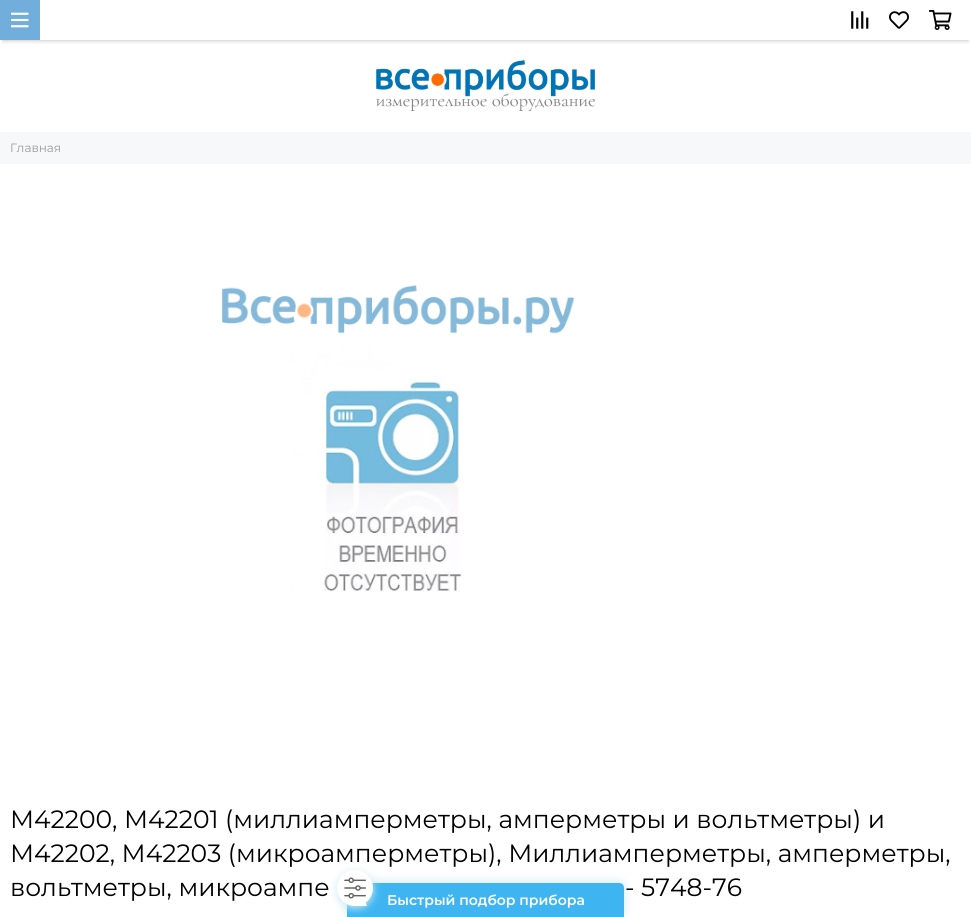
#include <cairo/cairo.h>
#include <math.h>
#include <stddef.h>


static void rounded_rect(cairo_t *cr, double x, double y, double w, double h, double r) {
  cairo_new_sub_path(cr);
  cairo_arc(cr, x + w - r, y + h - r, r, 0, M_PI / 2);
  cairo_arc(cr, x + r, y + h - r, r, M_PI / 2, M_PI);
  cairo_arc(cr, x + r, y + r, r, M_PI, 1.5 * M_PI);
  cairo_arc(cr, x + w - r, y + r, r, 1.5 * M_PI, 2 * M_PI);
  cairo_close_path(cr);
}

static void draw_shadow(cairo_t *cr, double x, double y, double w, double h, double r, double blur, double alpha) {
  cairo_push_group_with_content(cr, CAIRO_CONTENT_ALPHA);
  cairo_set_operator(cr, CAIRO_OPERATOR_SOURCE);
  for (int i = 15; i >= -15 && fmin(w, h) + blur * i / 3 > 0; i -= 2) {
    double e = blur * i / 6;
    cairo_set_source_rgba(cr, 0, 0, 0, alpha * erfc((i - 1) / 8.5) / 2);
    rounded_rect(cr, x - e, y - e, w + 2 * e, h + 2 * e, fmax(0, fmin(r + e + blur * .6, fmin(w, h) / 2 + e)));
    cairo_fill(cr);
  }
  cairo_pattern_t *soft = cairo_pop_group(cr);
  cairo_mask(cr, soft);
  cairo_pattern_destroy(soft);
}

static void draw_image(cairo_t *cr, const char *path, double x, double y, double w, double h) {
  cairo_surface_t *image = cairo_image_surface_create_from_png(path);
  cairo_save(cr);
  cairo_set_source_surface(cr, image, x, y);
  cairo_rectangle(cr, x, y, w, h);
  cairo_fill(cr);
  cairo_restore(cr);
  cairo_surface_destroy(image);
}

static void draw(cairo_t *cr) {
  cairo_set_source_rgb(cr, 1, 1, 1);
  cairo_paint(cr);
  cairo_save(cr);
  cairo_rectangle(cr, 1, 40, 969, 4);
  cairo_clip(cr);
  cairo_set_source_rgb(cr, 0, 0, 0);
  draw_shadow(cr, 3, 6, 965, 34, 0, 2.5, 0.3);
  cairo_restore(cr);
  cairo_set_source_rgb(cr, 113 / 255.0, 174 / 255.0, 220 / 255.0);
  cairo_rectangle(cr, 0, 0, 40, 40);
  cairo_fill(cr);
  draw_image(cr, "images/1.png", 11, 12, 18, 16);
  draw_image(cr, "images/2.png", 851, 11, 18, 18);
  draw_image(cr, "images/3.png", 889, 11, 20, 18);
  draw_image(cr, "images/4.png", 929, 10, 23, 20);
  draw_image(cr, "images/5.png", 376, 60, 219, 51);
  cairo_set_source_rgb(cr, 247 / 255.0, 248 / 255.0, 250 / 255.0);
  cairo_rectangle(cr, 0, 132, 971, 32);
  cairo_fill(cr);
  draw_image(cr, "images/6.png", 222, 285, 353, 307);
  cairo_set_source_rgb(cr, 206 / 255.0, 233 / 255.0, 246 / 255.0);
  draw_shadow(cr, 347, 882, 277, 34, 5, 5, 1);
  cairo_set_source_rgb(cr, 62 / 255.0, 181 / 255.0, 241 / 255.0);
  cairo_new_path(cr);
  cairo_move_to(cr, 352, 883);
  cairo_line_to(cr, 619, 883);
  cairo_curve_to(cr, 622, 883, 624, 885, 624, 888);
  cairo_line_to(cr, 624, 917);
  cairo_line_to(cr, 347, 917);
  cairo_line_to(cr, 347, 888);
  cairo_curve_to(cr, 347, 885, 349, 883, 352, 883);
  cairo_close_path(cr);
  cairo_fill(cr);
  cairo_set_source_rgb(cr, 206 / 255.0, 233 / 255.0, 246 / 255.0);
  draw_shadow(cr, 337, 872, 36, 36, 18, 4, 1);
  cairo_set_source_rgb(cr, 1, 1, 1);
  cairo_arc(cr, 355, 888, 18, 0, 2 * M_PI);
  cairo_fill(cr);
  cairo_new_path(cr);
  cairo_move_to(cr, 367, 906);
  cairo_line_to(cr, 355, 906);
  cairo_line_to(cr, 355, 876);
  cairo_close_path(cr);
  cairo_fill(cr);
  draw_image(cr, "images/7.png", 344, 877, 22, 22);
  cairo_select_font_face(cr, "Montserrat", CAIRO_FONT_SLANT_NORMAL, CAIRO_FONT_WEIGHT_NORMAL);
  cairo_set_font_size(cr, 12);
  cairo_set_source_rgb(cr, 153 / 255.0, 153 / 255.0, 153 / 255.0);
  cairo_move_to(cr, 10, 152);
  cairo_show_text(cr, "Главная");
  cairo_set_font_size(cr, 25);
  cairo_set_source_rgb(cr, 0, 0, 0);
  cairo_move_to(cr, 10, 828);
  cairo_show_text(cr, "М42200, М42201 (миллиамперметры, амперметры и вольтметры) и");
  cairo_move_to(cr, 10, 862);
  cairo_show_text(cr, "М42202, М42203 (микроамперметры), Миллиамперметры, амперметры,");
  cairo_move_to(cr, 10, 896);
  cairo_show_text(cr, "вольтметры, микроампе");
  cairo_move_to(cr, 625, 896);
  cairo_show_text(cr, "- 5748-76");
  cairo_select_font_face(cr, "Montserrat SemiBold", CAIRO_FONT_SLANT_NORMAL, CAIRO_FONT_WEIGHT_NORMAL);
  cairo_set_font_size(cr, 14);
  cairo_set_source_rgb(cr, 1, 1, 1);
  cairo_move_to(cr, 387, 905);
  cairo_show_text(cr, "Быстрый подбор прибора");
}

int main(void) {
  cairo_surface_t *surface = cairo_image_surface_create(CAIRO_FORMAT_RGB24, 971, 917);
  cairo_t *cr = cairo_create(surface);
  cairo_font_options_t *options = cairo_font_options_create();
  cairo_font_options_set_hint_metrics(options, CAIRO_HINT_METRICS_OFF);
  cairo_font_options_set_hint_style(options, CAIRO_HINT_STYLE_NONE);
  cairo_set_font_options(cr, options);
  cairo_set_miter_limit(cr, 4);
  draw(cr);
  cairo_surface_write_to_png(surface, "out.png");
  cairo_font_options_destroy(options);
  cairo_destroy(cr);
  cairo_surface_destroy(surface);
  return 0;
}
